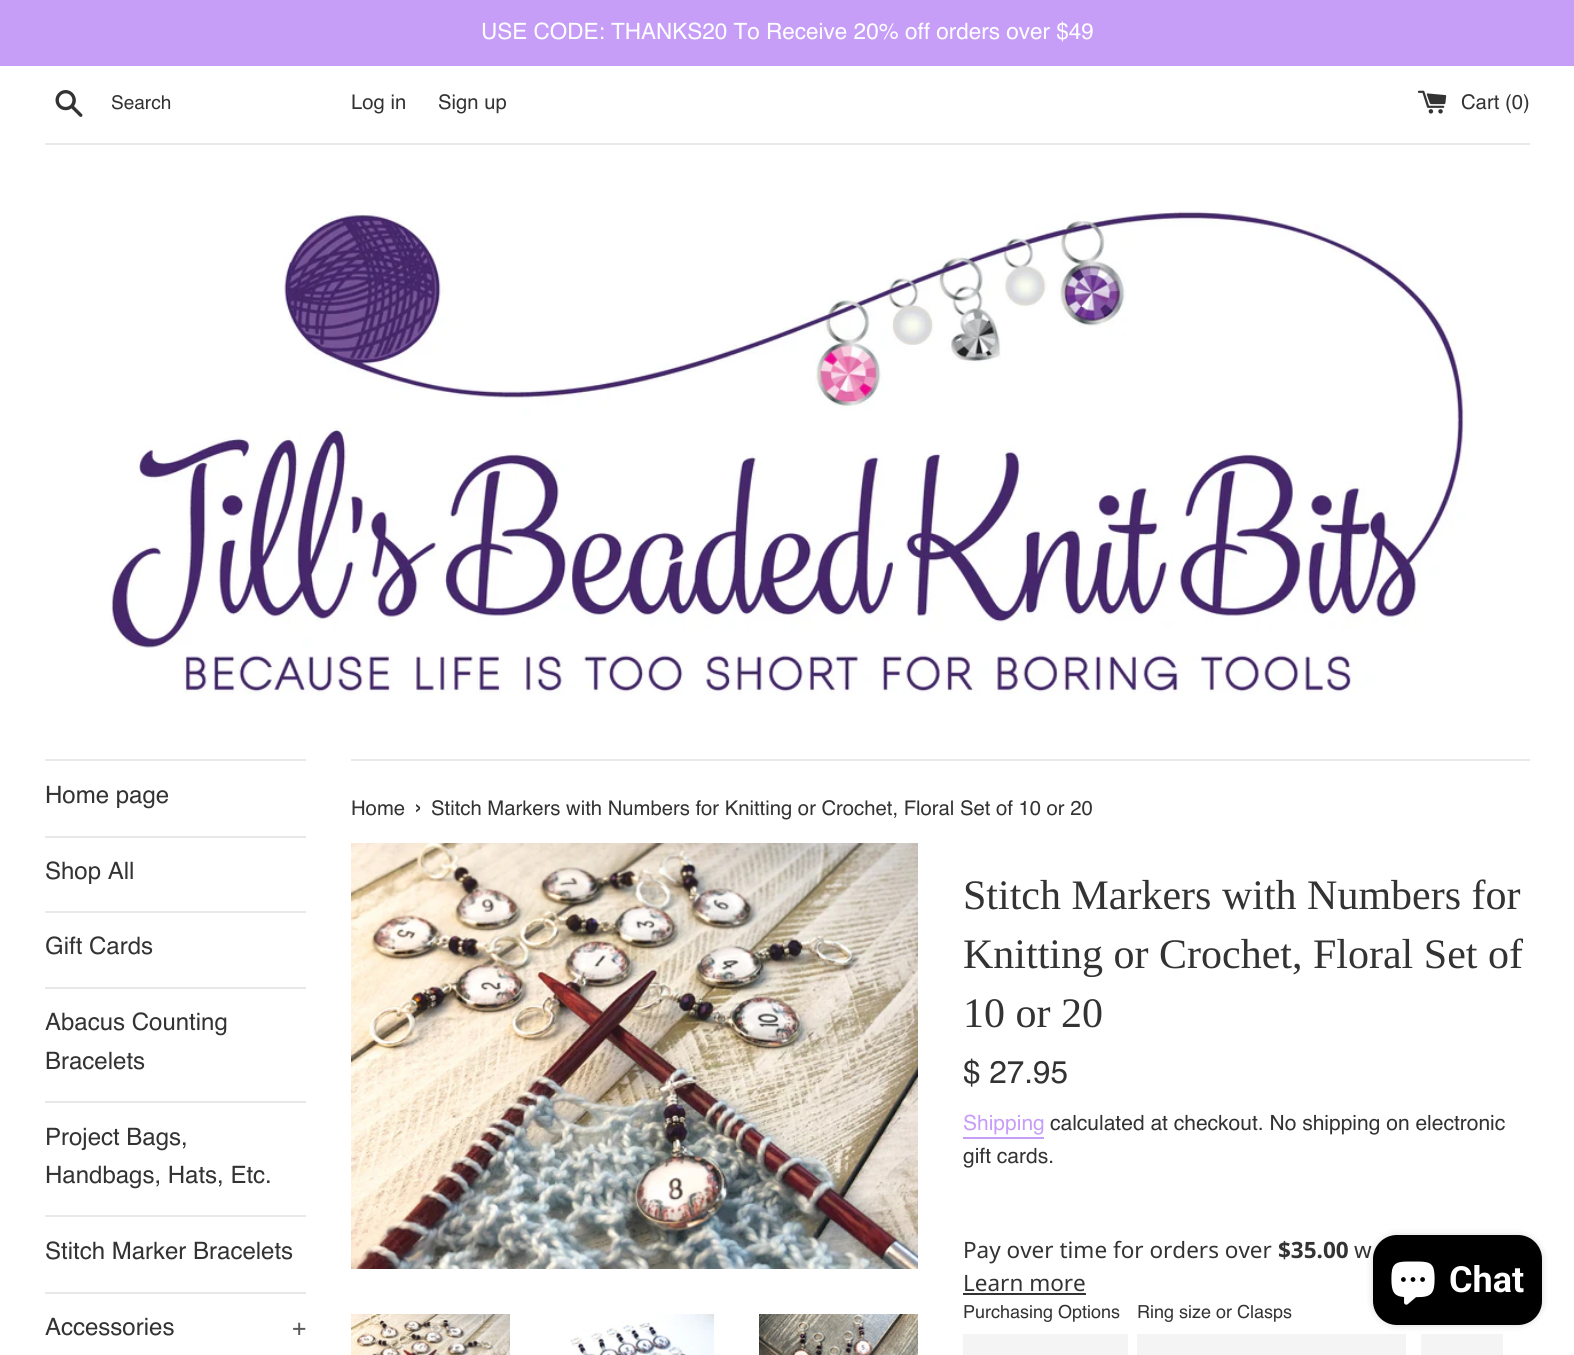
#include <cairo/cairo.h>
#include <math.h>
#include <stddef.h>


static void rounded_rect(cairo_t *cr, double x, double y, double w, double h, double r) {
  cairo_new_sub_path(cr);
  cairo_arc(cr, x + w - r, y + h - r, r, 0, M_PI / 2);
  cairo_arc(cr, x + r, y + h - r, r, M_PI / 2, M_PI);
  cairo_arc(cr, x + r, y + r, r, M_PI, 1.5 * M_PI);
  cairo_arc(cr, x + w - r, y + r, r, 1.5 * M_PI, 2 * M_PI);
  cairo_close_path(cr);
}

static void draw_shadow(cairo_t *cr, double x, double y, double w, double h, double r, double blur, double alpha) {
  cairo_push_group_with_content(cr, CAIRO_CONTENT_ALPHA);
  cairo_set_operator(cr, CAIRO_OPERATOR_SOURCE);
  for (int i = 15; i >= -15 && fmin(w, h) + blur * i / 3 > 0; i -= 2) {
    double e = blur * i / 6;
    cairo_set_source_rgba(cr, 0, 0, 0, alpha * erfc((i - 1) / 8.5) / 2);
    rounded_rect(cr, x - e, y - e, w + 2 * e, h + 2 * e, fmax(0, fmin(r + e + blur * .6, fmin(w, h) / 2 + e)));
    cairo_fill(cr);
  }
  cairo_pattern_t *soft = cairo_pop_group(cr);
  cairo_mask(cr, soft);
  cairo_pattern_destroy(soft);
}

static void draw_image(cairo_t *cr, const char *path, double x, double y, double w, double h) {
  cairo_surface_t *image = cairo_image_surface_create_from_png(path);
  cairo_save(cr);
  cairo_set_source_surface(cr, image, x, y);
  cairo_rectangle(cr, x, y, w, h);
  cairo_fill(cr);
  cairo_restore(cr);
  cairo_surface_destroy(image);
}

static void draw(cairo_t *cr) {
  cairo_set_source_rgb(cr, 1, 1, 1);
  cairo_paint(cr);
  cairo_set_source_rgb(cr, 198 / 255.0, 158 / 255.0, 248 / 255.0);
  cairo_rectangle(cr, 0, 0, 1574, 66);
  cairo_fill(cr);
  draw_image(cr, "images/1.png", 55, 90, 28, 27);
  draw_image(cr, "images/2.png", 1418, 90, 29, 24);
  cairo_set_source_rgb(cr, 232 / 255.0, 232 / 255.0, 232 / 255.0);
  cairo_rectangle(cr, 45, 143, 1485, 2);
  cairo_fill(cr);
  draw_image(cr, "images/3.png", 110, 211, 1356, 484);
  cairo_rectangle(cr, 45, 759, 261, 2);
  cairo_fill(cr);
  cairo_rectangle(cr, 45, 836, 261, 2);
  cairo_fill(cr);
  cairo_rectangle(cr, 45, 911, 261, 2);
  cairo_fill(cr);
  cairo_rectangle(cr, 45, 987, 261, 2);
  cairo_fill(cr);
  cairo_rectangle(cr, 45, 1101, 261, 2);
  cairo_fill(cr);
  cairo_rectangle(cr, 45, 1215, 261, 2);
  cairo_fill(cr);
  cairo_rectangle(cr, 45, 1292, 261, 2);
  cairo_fill(cr);
  cairo_rectangle(cr, 351, 759, 1179, 2);
  cairo_fill(cr);
  draw_image(cr, "images/4.png", 351, 843, 567, 426);
  draw_image(cr, "images/5.png", 351, 1314, 159, 41);
  draw_image(cr, "images/6.png", 570, 1314, 144, 41);
  draw_image(cr, "images/7.png", 759, 1314, 159, 41);
  cairo_set_source_rgb(cr, 198 / 255.0, 158 / 255.0, 248 / 255.0);
  cairo_rectangle(cr, 963, 1137, 81, 2);
  cairo_fill(cr);
  cairo_set_source_rgb(cr, 51 / 255.0, 51 / 255.0, 51 / 255.0);
  cairo_rectangle(cr, 963, 1293, 123, 2);
  cairo_fill(cr);
  cairo_set_source_rgb(cr, 244 / 255.0, 244 / 255.0, 244 / 255.0);
  cairo_rectangle(cr, 963, 1334, 165, 21);
  cairo_fill(cr);
  cairo_rectangle(cr, 1137, 1334, 269, 21);
  cairo_fill(cr);
  cairo_rectangle(cr, 1421, 1334, 82, 21);
  cairo_fill(cr);
  cairo_set_source_rgb(cr, 0, 0, 0);
  draw_shadow(cr, 1373, 1235, 169, 90, 24, 4, 0.15);
  cairo_set_source_rgb(cr, 0, 0, 0);
  rounded_rect(cr, 1373, 1235, 169, 90, 24);
  cairo_fill(cr);
  draw_image(cr, "images/8.png", 1391, 1261, 44, 44);
  cairo_select_font_face(cr, "Helvetica", CAIRO_FONT_SLANT_NORMAL, CAIRO_FONT_WEIGHT_NORMAL);
  cairo_set_font_size(cr, 22.5);
  cairo_set_source_rgb(cr, 1, 1, 1);
  cairo_move_to(cr, 481, 39);
  cairo_show_text(cr, "USE CODE: THANKS20 To Receive 20% off orders over $49");
  cairo_set_font_size(cr, 19);
  cairo_set_source_rgb(cr, 51 / 255.0, 51 / 255.0, 51 / 255.0);
  cairo_move_to(cr, 111, 109);
  cairo_show_text(cr, "Search");
  cairo_set_font_size(cr, 20.25);
  cairo_move_to(cr, 351, 109);
  cairo_show_text(cr, "Log in");
  cairo_move_to(cr, 438, 109);
  cairo_show_text(cr, "Sign up");
  cairo_move_to(cr, 1461, 109);
  cairo_show_text(cr, "Cart (0)");
  cairo_set_font_size(cr, 24);
  cairo_move_to(cr, 45, 803);
  cairo_show_text(cr, "Home page");
  cairo_move_to(cr, 45, 879);
  cairo_show_text(cr, "Shop All");
  cairo_move_to(cr, 45, 954);
  cairo_show_text(cr, "Gift Cards");
  cairo_move_to(cr, 45, 1030);
  cairo_show_text(cr, "Abacus Counting");
  cairo_move_to(cr, 45, 1069);
  cairo_show_text(cr, "Bracelets");
  cairo_move_to(cr, 45, 1145);
  cairo_show_text(cr, "Project Bags,");
  cairo_move_to(cr, 45, 1183);
  cairo_show_text(cr, "Handbags, Hats, Etc.");
  cairo_move_to(cr, 45, 1259);
  cairo_show_text(cr, "Stitch Marker Bracelets");
  cairo_move_to(cr, 45, 1335);
  cairo_show_text(cr, "Accessories");
  cairo_set_source_rgb(cr, 92 / 255.0, 92 / 255.0, 92 / 255.0);
  cairo_move_to(cr, 292, 1335);
  cairo_show_text(cr, "+");
  cairo_set_font_size(cr, 20.25);
  cairo_set_source_rgb(cr, 51 / 255.0, 51 / 255.0, 51 / 255.0);
  cairo_move_to(cr, 351, 815);
  cairo_show_text(cr, "Home");
  cairo_set_font_size(cr, 25);
  cairo_move_to(cr, 414, 815);
  cairo_show_text(cr, "›");
  cairo_set_font_size(cr, 20.25);
  cairo_move_to(cr, 431, 815);
  cairo_show_text(cr, "Stitch Markers with Numbers for Knitting or Crochet, Floral Set of 10 or 20");
  cairo_select_font_face(cr, "Liberation Serif", CAIRO_FONT_SLANT_NORMAL, CAIRO_FONT_WEIGHT_NORMAL);
  cairo_set_font_size(cr, 42);
  cairo_move_to(cr, 963, 909);
  cairo_show_text(cr, "Stitch Markers with Numbers for");
  cairo_move_to(cr, 963, 968);
  cairo_show_text(cr, "Knitting or Crochet, Floral Set of");
  cairo_move_to(cr, 963, 1027);
  cairo_show_text(cr, "10 or 20");
  cairo_select_font_face(cr, "Helvetica", CAIRO_FONT_SLANT_NORMAL, CAIRO_FONT_WEIGHT_NORMAL);
  cairo_set_font_size(cr, 31.5);
  cairo_move_to(cr, 963, 1083);
  cairo_show_text(cr, "$ 27.95");
  cairo_set_font_size(cr, 21);
  cairo_set_source_rgb(cr, 198 / 255.0, 158 / 255.0, 248 / 255.0);
  cairo_move_to(cr, 963, 1130);
  cairo_show_text(cr, "Shipping");
  cairo_set_source_rgb(cr, 51 / 255.0, 51 / 255.0, 51 / 255.0);
  cairo_move_to(cr, 1050, 1130);
  cairo_show_text(cr, "calculated at checkout. No shipping on electronic");
  cairo_move_to(cr, 963, 1163);
  cairo_show_text(cr, "gift cards.");
  cairo_select_font_face(cr, "Noto Sans", CAIRO_FONT_SLANT_NORMAL, CAIRO_FONT_WEIGHT_NORMAL);
  cairo_set_font_size(cr, 22.5);
  cairo_move_to(cr, 963, 1258);
  cairo_show_text(cr, "Pay over time for orders over");
  cairo_select_font_face(cr, "Noto Sans", CAIRO_FONT_SLANT_NORMAL, CAIRO_FONT_WEIGHT_BOLD);
  cairo_move_to(cr, 1278, 1258);
  cairo_show_text(cr, "$35.00");
  cairo_select_font_face(cr, "Noto Sans", CAIRO_FONT_SLANT_NORMAL, CAIRO_FONT_WEIGHT_NORMAL);
  cairo_move_to(cr, 1354, 1258);
  cairo_show_text(cr, "w");
  cairo_move_to(cr, 963, 1291);
  cairo_show_text(cr, "Learn more");
  cairo_select_font_face(cr, "Helvetica", CAIRO_FONT_SLANT_NORMAL, CAIRO_FONT_WEIGHT_NORMAL);
  cairo_set_font_size(cr, 18);
  cairo_move_to(cr, 963, 1318);
  cairo_show_text(cr, "Purchasing Options");
  cairo_move_to(cr, 1137, 1318);
  cairo_show_text(cr, "Ring size or Clasps");
  cairo_select_font_face(cr, "Roboto", CAIRO_FONT_SLANT_NORMAL, CAIRO_FONT_WEIGHT_BOLD);
  cairo_set_font_size(cr, 36);
  cairo_set_source_rgb(cr, 1, 1, 1);
  cairo_move_to(cr, 1449, 1292);
  cairo_show_text(cr, "Chat");
}

int main(void) {
  cairo_surface_t *surface = cairo_image_surface_create(CAIRO_FORMAT_RGB24, 1574, 1355);
  cairo_t *cr = cairo_create(surface);
  cairo_font_options_t *options = cairo_font_options_create();
  cairo_font_options_set_hint_metrics(options, CAIRO_HINT_METRICS_OFF);
  cairo_font_options_set_hint_style(options, CAIRO_HINT_STYLE_NONE);
  cairo_set_font_options(cr, options);
  cairo_set_miter_limit(cr, 4);
  draw(cr);
  cairo_surface_write_to_png(surface, "out.png");
  cairo_font_options_destroy(options);
  cairo_destroy(cr);
  cairo_surface_destroy(surface);
  return 0;
}
